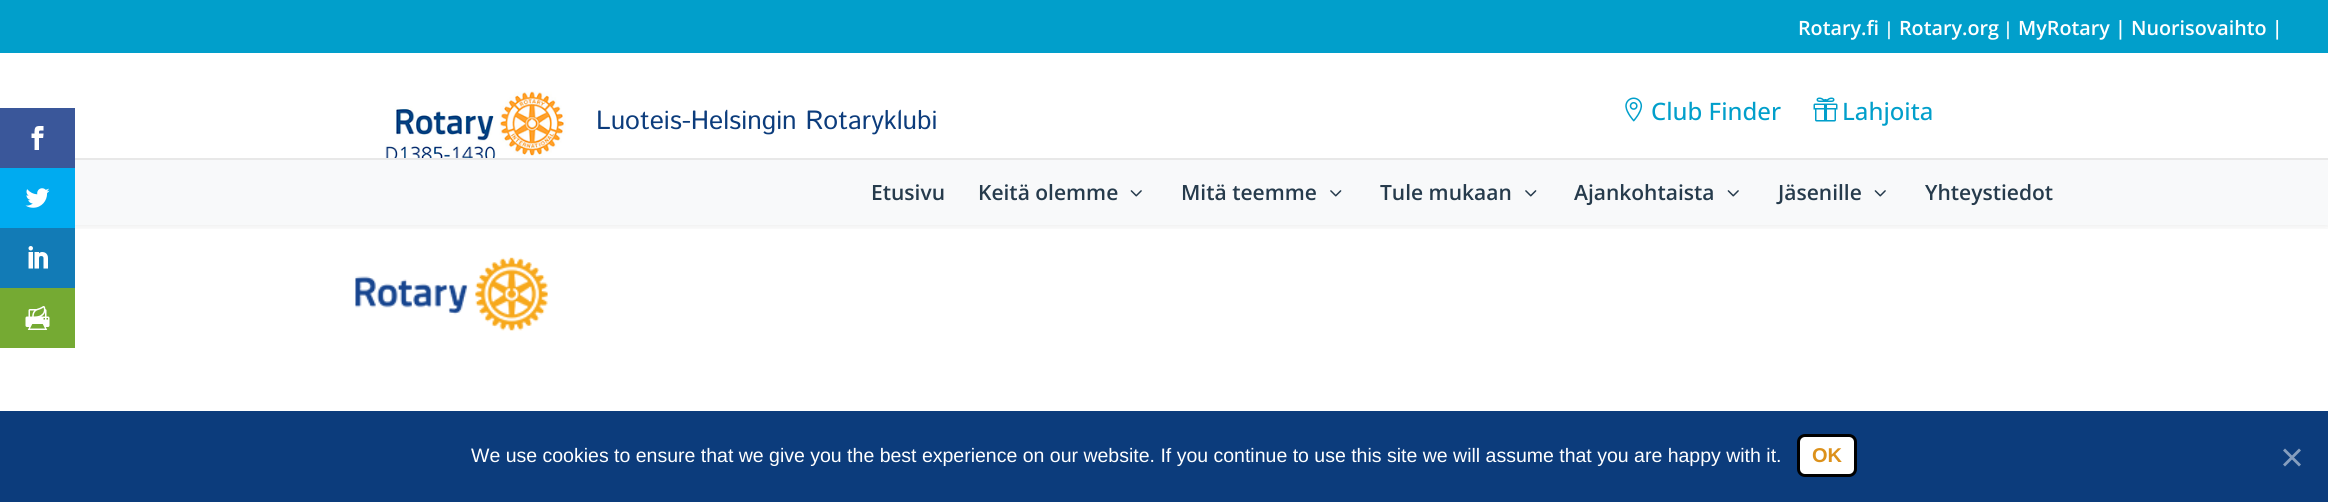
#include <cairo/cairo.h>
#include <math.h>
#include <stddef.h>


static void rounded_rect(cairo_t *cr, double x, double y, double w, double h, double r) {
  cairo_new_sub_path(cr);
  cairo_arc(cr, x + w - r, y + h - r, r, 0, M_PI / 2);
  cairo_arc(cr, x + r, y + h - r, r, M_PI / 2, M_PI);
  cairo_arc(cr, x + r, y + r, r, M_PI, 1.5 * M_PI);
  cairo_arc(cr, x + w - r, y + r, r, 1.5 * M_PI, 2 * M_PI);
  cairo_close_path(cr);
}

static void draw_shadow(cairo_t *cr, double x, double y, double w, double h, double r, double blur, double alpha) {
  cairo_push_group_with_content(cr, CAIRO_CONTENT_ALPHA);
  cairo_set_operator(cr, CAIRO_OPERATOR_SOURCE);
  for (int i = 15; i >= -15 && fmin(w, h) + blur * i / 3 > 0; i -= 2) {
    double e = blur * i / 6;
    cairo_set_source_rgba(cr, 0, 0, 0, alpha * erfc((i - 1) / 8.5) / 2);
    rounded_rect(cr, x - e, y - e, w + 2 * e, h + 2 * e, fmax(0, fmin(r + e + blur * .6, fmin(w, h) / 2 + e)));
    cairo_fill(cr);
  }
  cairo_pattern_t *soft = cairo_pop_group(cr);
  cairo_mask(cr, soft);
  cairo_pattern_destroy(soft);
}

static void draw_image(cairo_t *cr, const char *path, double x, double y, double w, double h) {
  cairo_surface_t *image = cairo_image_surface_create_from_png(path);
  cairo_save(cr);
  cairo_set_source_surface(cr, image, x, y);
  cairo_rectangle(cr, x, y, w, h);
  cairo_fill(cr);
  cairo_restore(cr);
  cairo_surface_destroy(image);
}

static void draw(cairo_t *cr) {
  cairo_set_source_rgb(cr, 1, 1, 1);
  cairo_paint(cr);
  cairo_save(cr);
  cairo_rectangle(cr, 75, 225, 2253, 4);
  cairo_clip(cr);
  cairo_set_source_rgb(cr, 0, 0, 0);
  draw_shadow(cr, 0, 53, 2328, 172, 0, 5, 0.1);
  cairo_restore(cr);
  cairo_set_source_rgb(cr, 58 / 255.0, 87 / 255.0, 154 / 255.0);
  cairo_rectangle(cr, 0, 108, 75, 60);
  cairo_fill(cr);
  draw_image(cr, "images/1.png", 31, 126, 13, 24);
  cairo_set_source_rgb(cr, 0, 171 / 255.0, 240 / 255.0);
  cairo_rectangle(cr, 0, 168, 75, 60);
  cairo_fill(cr);
  draw_image(cr, "images/2.png", 25, 188, 25, 20);
  cairo_set_source_rgb(cr, 18 / 255.0, 123 / 255.0, 182 / 255.0);
  cairo_rectangle(cr, 0, 228, 75, 60);
  cairo_fill(cr);
  draw_image(cr, "images/3.png", 28, 246, 20, 23);
  cairo_set_source_rgb(cr, 117 / 255.0, 170 / 255.0, 51 / 255.0);
  cairo_rectangle(cr, 0, 288, 75, 60);
  cairo_fill(cr);
  draw_image(cr, "images/4.png", 25, 306, 25, 24);
  cairo_set_source_rgb(cr, 1 / 255.0, 159 / 255.0, 203 / 255.0);
  cairo_rectangle(cr, 0, 0, 2328, 53);
  cairo_fill(cr);
  draw_image(cr, "images/5.png", 385, 91, 181, 67);
  draw_image(cr, "images/6.png", 1625, 97, 18, 25);
  draw_image(cr, "images/7.png", 1813, 97, 25, 25);
  cairo_set_source_rgb(cr, 248 / 255.0, 249 / 255.0, 250 / 255.0);
  cairo_rectangle(cr, 75, 160, 2253, 65);
  cairo_fill(cr);
  cairo_set_source_rgb(cr, 232 / 255.0, 232 / 255.0, 232 / 255.0);
  cairo_rectangle(cr, 75, 158, 2253, 2);
  cairo_fill(cr);
  draw_image(cr, "images/8.png", 1130, 190, 12, 7);
  draw_image(cr, "images/9.png", 1330, 190, 12, 7);
  draw_image(cr, "images/9.png", 1525, 190, 12, 7);
  draw_image(cr, "images/8.png", 1727, 190, 12, 7);
  draw_image(cr, "images/8.png", 1874, 190, 12, 7);
  draw_image(cr, "images/10.png", 355, 257, 193, 74);
  cairo_set_source_rgb(cr, 12 / 255.0, 60 / 255.0, 124 / 255.0);
  cairo_rectangle(cr, 0, 411, 2328, 91);
  cairo_fill(cr);
  cairo_set_source_rgb(cr, 1, 1, 1);
  rounded_rect(cr, 1798.5, 435.5, 57, 40, 6.5);
  cairo_fill_preserve(cr);
  cairo_set_source_rgb(cr, 0, 0, 0);
  cairo_set_line_width(cr, 3);
  cairo_stroke(cr);
  cairo_set_source_rgb(cr, 134 / 255.0, 158 / 255.0, 190 / 255.0);
  cairo_new_path(cr);
  cairo_move_to(cr, 2299, 448.5);
  cairo_line_to(cr, 2301, 450.5);
  cairo_line_to(cr, 2285, 466.5);
  cairo_line_to(cr, 2283, 464.5);
  cairo_close_path(cr);
  cairo_fill(cr);
  cairo_new_path(cr);
  cairo_move_to(cr, 2283, 450.5);
  cairo_line_to(cr, 2285, 448.5);
  cairo_line_to(cr, 2301, 464.5);
  cairo_line_to(cr, 2299, 466.5);
  cairo_close_path(cr);
  cairo_fill(cr);
  cairo_select_font_face(cr, "Open Sans SemiBold", CAIRO_FONT_SLANT_NORMAL, CAIRO_FONT_WEIGHT_NORMAL);
  cairo_set_font_size(cr, 19.75);
  cairo_set_source_rgb(cr, 1, 1, 1);
  cairo_move_to(cr, 1798, 35);
  cairo_show_text(cr, "Rotary.fi");
  cairo_set_font_size(cr, 18);
  cairo_move_to(cr, 1884, 35);
  cairo_show_text(cr, "|");
  cairo_set_font_size(cr, 19.75);
  cairo_move_to(cr, 1899, 35);
  cairo_show_text(cr, "Rotary.org");
  cairo_set_font_size(cr, 18);
  cairo_move_to(cr, 2003, 35);
  cairo_show_text(cr, "|");
  cairo_set_font_size(cr, 19.75);
  cairo_move_to(cr, 2018, 35);
  cairo_show_text(cr, "MyRotary | Nuorisovaihto |");
  cairo_select_font_face(cr, "Istok Web", CAIRO_FONT_SLANT_NORMAL, CAIRO_FONT_WEIGHT_NORMAL);
  cairo_set_font_size(cr, 26.4);
  cairo_set_source_rgb(cr, 12 / 255.0, 60 / 255.0, 124 / 255.0);
  cairo_move_to(cr, 596, 129);
  cairo_show_text(cr, "Luoteis-Helsingin Rotaryklubi");
  cairo_select_font_face(cr, "Open Sans Medium", CAIRO_FONT_SLANT_NORMAL, CAIRO_FONT_WEIGHT_NORMAL);
  cairo_set_font_size(cr, 24);
  cairo_set_source_rgb(cr, 1 / 255.0, 159 / 255.0, 203 / 255.0);
  cairo_move_to(cr, 1651, 120);
  cairo_show_text(cr, "Club Finder");
  cairo_move_to(cr, 1842, 120);
  cairo_show_text(cr, "Lahjoita");
  cairo_select_font_face(cr, "Open Sans SemiBold", CAIRO_FONT_SLANT_NORMAL, CAIRO_FONT_WEIGHT_NORMAL);
  cairo_set_font_size(cr, 21);
  cairo_set_source_rgb(cr, 38 / 255.0, 59 / 255.0, 76 / 255.0);
  cairo_move_to(cr, 871, 200);
  cairo_show_text(cr, "Etusivu");
  cairo_move_to(cr, 978, 200);
  cairo_show_text(cr, "Keitä olemme");
  cairo_move_to(cr, 1181, 200);
  cairo_show_text(cr, "Mitä teemme");
  cairo_move_to(cr, 1380, 200);
  cairo_show_text(cr, "Tule mukaan");
  cairo_move_to(cr, 1574, 200);
  cairo_show_text(cr, "Ajankohtaista");
  cairo_move_to(cr, 1778, 200);
  cairo_show_text(cr, "Jäsenille");
  cairo_move_to(cr, 1925, 200);
  cairo_show_text(cr, "Yhteystiedot");
  cairo_select_font_face(cr, "Liberation Sans", CAIRO_FONT_SLANT_NORMAL, CAIRO_FONT_WEIGHT_NORMAL);
  cairo_set_font_size(cr, 19.5);
  cairo_set_source_rgb(cr, 1, 1, 1);
  cairo_move_to(cr, 471, 462);
  cairo_show_text(cr, "We use cookies to ensure that we give you the best experience on our website. If you continue to use this site we will assume that you are happy with it.");
  cairo_select_font_face(cr, "Liberation Sans", CAIRO_FONT_SLANT_NORMAL, CAIRO_FONT_WEIGHT_BOLD);
  cairo_set_font_size(cr, 20);
  cairo_set_source_rgb(cr, 220 / 255.0, 145 / 255.0, 27 / 255.0);
  cairo_move_to(cr, 1812, 462);
  cairo_show_text(cr, "OK");
}

int main(void) {
  cairo_surface_t *surface = cairo_image_surface_create(CAIRO_FORMAT_RGB24, 2328, 502);
  cairo_t *cr = cairo_create(surface);
  cairo_font_options_t *options = cairo_font_options_create();
  cairo_font_options_set_hint_metrics(options, CAIRO_HINT_METRICS_OFF);
  cairo_font_options_set_hint_style(options, CAIRO_HINT_STYLE_NONE);
  cairo_set_font_options(cr, options);
  cairo_set_miter_limit(cr, 4);
  draw(cr);
  cairo_surface_write_to_png(surface, "out.png");
  cairo_font_options_destroy(options);
  cairo_destroy(cr);
  cairo_surface_destroy(surface);
  return 0;
}
